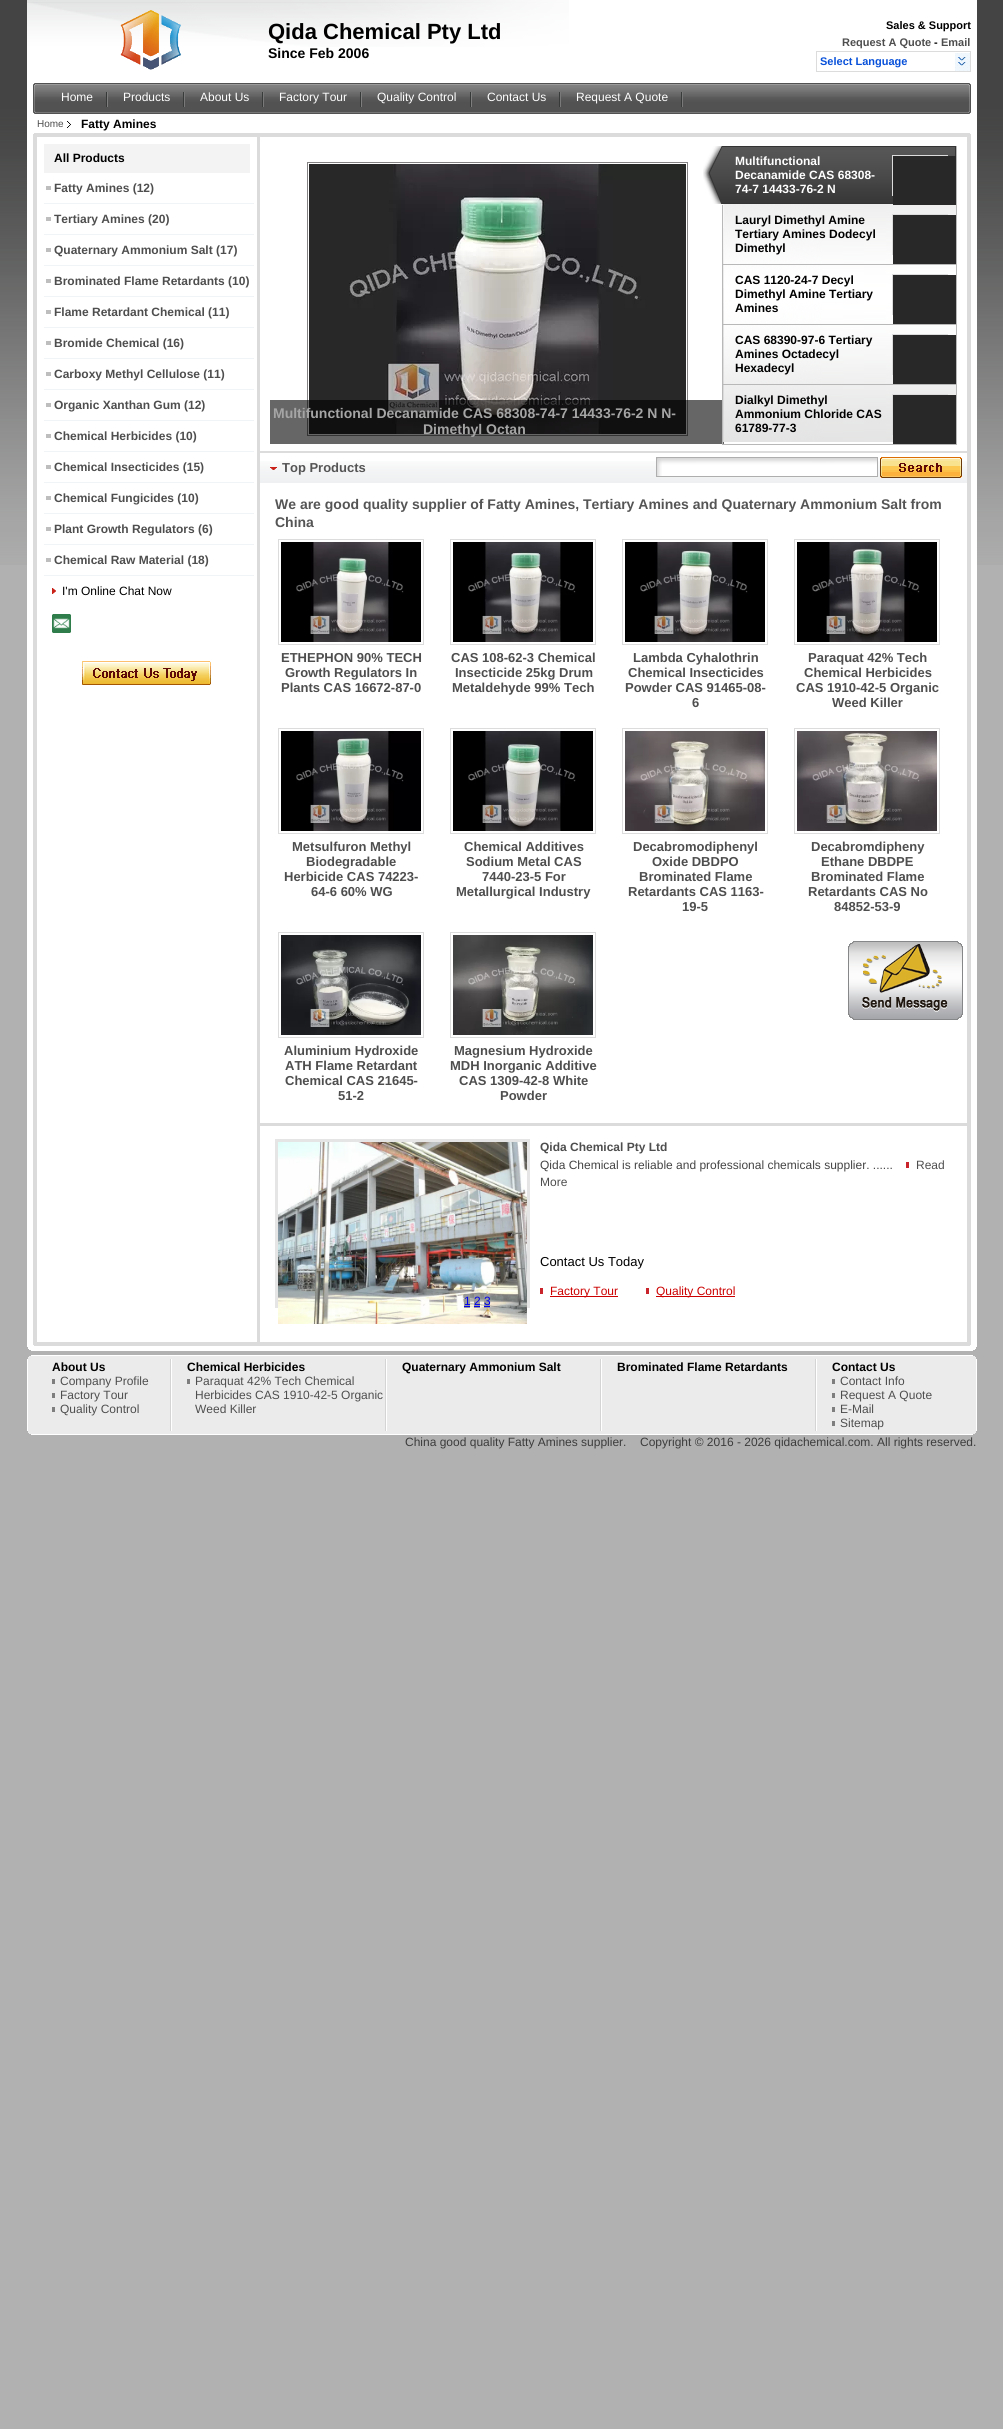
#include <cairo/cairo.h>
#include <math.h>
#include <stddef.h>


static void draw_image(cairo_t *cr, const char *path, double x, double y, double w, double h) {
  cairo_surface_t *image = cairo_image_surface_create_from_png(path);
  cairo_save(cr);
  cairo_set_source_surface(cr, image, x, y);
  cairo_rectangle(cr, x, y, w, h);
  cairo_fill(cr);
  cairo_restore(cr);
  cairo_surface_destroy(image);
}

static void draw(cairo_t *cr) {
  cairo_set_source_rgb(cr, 176 / 255.0, 177 / 255.0, 176 / 255.0);
  cairo_paint(cr);
  draw_image(cr, "images/1.png", 0, 0, 1003, 565);
  cairo_set_source_rgb(cr, 1, 1, 1);
  cairo_rectangle(cr, 27, 0, 950, 134);
  cairo_fill(cr);
  draw_image(cr, "images/2.png", 27, 0, 542, 47);
  draw_image(cr, "images/3.png", 120, 10, 62, 60);
  cairo_rectangle(cr, 816.5, 51.5, 154, 20);
  cairo_set_source_rgb(cr, 220 / 255.0, 220 / 255.0, 220 / 255.0);
  cairo_set_line_width(cr, 1);
  cairo_stroke(cr);
  draw_image(cr, "images/4.png", 955, 53, 15, 18);
  draw_image(cr, "images/5.png", 36, 83, 932, 31);
  draw_image(cr, "images/6.png", 33, 83, 3, 31);
  draw_image(cr, "images/7.png", 106, 92, 2, 15);
  draw_image(cr, "images/8.png", 183, 92, 2, 15);
  draw_image(cr, "images/8.png", 262, 92, 2, 15);
  draw_image(cr, "images/7.png", 360, 92, 2, 15);
  draw_image(cr, "images/7.png", 470, 92, 2, 15);
  draw_image(cr, "images/8.png", 559, 92, 2, 15);
  draw_image(cr, "images/8.png", 681, 92, 2, 15);
  draw_image(cr, "images/9.png", 968, 83, 3, 31);
  cairo_set_source_rgb(cr, 1, 1, 1);
  cairo_rectangle(cr, 27, 134, 950, 1208);
  cairo_fill(cr);
  draw_image(cr, "images/12.png", 33, 134, 938, 1208);
  draw_image(cr, "images/10.png", 848, 941, 115, 79);
  cairo_set_source_rgb(cr, 219 / 255.0, 219 / 255.0, 219 / 255.0);
  cairo_rectangle(cr, 34, 133, 936, 1);
  cairo_fill(cr);
  draw_image(cr, "images/11.png", 67, 121, 4, 7);
  cairo_rectangle(cr, 37, 134, 220, 3);
  cairo_fill(cr);
  cairo_set_source_rgb(cr, 243 / 255.0, 243 / 255.0, 243 / 255.0);
  cairo_rectangle(cr, 44, 144, 206, 29);
  cairo_fill(cr);
  cairo_set_source_rgb(cr, 190 / 255.0, 190 / 255.0, 190 / 255.0);
  cairo_rectangle(cr, 46, 186, 5, 4);
  cairo_fill(cr);
  cairo_set_source_rgb(cr, 240 / 255.0, 244 / 255.0, 246 / 255.0);
  cairo_rectangle(cr, 44, 203, 210, 1);
  cairo_fill(cr);
  cairo_set_source_rgb(cr, 190 / 255.0, 190 / 255.0, 190 / 255.0);
  cairo_rectangle(cr, 46, 217, 5, 4);
  cairo_fill(cr);
  cairo_set_source_rgb(cr, 240 / 255.0, 244 / 255.0, 246 / 255.0);
  cairo_rectangle(cr, 44, 234, 210, 1);
  cairo_fill(cr);
  cairo_set_source_rgb(cr, 190 / 255.0, 190 / 255.0, 190 / 255.0);
  cairo_rectangle(cr, 46, 248, 5, 4);
  cairo_fill(cr);
  cairo_set_source_rgb(cr, 240 / 255.0, 244 / 255.0, 246 / 255.0);
  cairo_rectangle(cr, 44, 265, 210, 1);
  cairo_fill(cr);
  cairo_set_source_rgb(cr, 190 / 255.0, 190 / 255.0, 190 / 255.0);
  cairo_rectangle(cr, 46, 279, 5, 4);
  cairo_fill(cr);
  cairo_set_source_rgb(cr, 240 / 255.0, 244 / 255.0, 246 / 255.0);
  cairo_rectangle(cr, 44, 296, 210, 1);
  cairo_fill(cr);
  cairo_set_source_rgb(cr, 190 / 255.0, 190 / 255.0, 190 / 255.0);
  cairo_rectangle(cr, 46, 310, 5, 4);
  cairo_fill(cr);
  cairo_set_source_rgb(cr, 240 / 255.0, 244 / 255.0, 246 / 255.0);
  cairo_rectangle(cr, 44, 327, 210, 1);
  cairo_fill(cr);
  cairo_set_source_rgb(cr, 190 / 255.0, 190 / 255.0, 190 / 255.0);
  cairo_rectangle(cr, 46, 341, 5, 4);
  cairo_fill(cr);
  cairo_set_source_rgb(cr, 240 / 255.0, 244 / 255.0, 246 / 255.0);
  cairo_rectangle(cr, 44, 358, 210, 1);
  cairo_fill(cr);
  cairo_set_source_rgb(cr, 190 / 255.0, 190 / 255.0, 190 / 255.0);
  cairo_rectangle(cr, 46, 372, 5, 4);
  cairo_fill(cr);
  cairo_set_source_rgb(cr, 240 / 255.0, 244 / 255.0, 246 / 255.0);
  cairo_rectangle(cr, 44, 389, 210, 1);
  cairo_fill(cr);
  cairo_set_source_rgb(cr, 190 / 255.0, 190 / 255.0, 190 / 255.0);
  cairo_rectangle(cr, 46, 403, 5, 4);
  cairo_fill(cr);
  cairo_set_source_rgb(cr, 240 / 255.0, 244 / 255.0, 246 / 255.0);
  cairo_rectangle(cr, 44, 420, 210, 1);
  cairo_fill(cr);
  cairo_set_source_rgb(cr, 190 / 255.0, 190 / 255.0, 190 / 255.0);
  cairo_rectangle(cr, 46, 434, 5, 4);
  cairo_fill(cr);
  cairo_set_source_rgb(cr, 240 / 255.0, 244 / 255.0, 246 / 255.0);
  cairo_rectangle(cr, 44, 451, 210, 1);
  cairo_fill(cr);
  cairo_set_source_rgb(cr, 190 / 255.0, 190 / 255.0, 190 / 255.0);
  cairo_rectangle(cr, 46, 465, 5, 4);
  cairo_fill(cr);
  cairo_set_source_rgb(cr, 240 / 255.0, 244 / 255.0, 246 / 255.0);
  cairo_rectangle(cr, 44, 482, 210, 1);
  cairo_fill(cr);
  cairo_set_source_rgb(cr, 190 / 255.0, 190 / 255.0, 190 / 255.0);
  cairo_rectangle(cr, 46, 496, 5, 4);
  cairo_fill(cr);
  cairo_set_source_rgb(cr, 240 / 255.0, 244 / 255.0, 246 / 255.0);
  cairo_rectangle(cr, 44, 513, 210, 1);
  cairo_fill(cr);
  cairo_set_source_rgb(cr, 190 / 255.0, 190 / 255.0, 190 / 255.0);
  cairo_rectangle(cr, 46, 527, 5, 4);
  cairo_fill(cr);
  cairo_set_source_rgb(cr, 240 / 255.0, 244 / 255.0, 246 / 255.0);
  cairo_rectangle(cr, 44, 544, 210, 1);
  cairo_fill(cr);
  cairo_set_source_rgb(cr, 190 / 255.0, 190 / 255.0, 190 / 255.0);
  cairo_rectangle(cr, 46, 558, 5, 4);
  cairo_fill(cr);
  cairo_set_source_rgb(cr, 240 / 255.0, 244 / 255.0, 246 / 255.0);
  cairo_rectangle(cr, 44, 575, 210, 1);
  cairo_fill(cr);
  draw_image(cr, "images/13.png", 52, 588, 4, 6);
  draw_image(cr, "images/14.png", 52, 614, 19, 19);
  draw_image(cr, "images/15.png", 82, 661, 129, 24);
  cairo_set_source_rgb(cr, 219 / 255.0, 219 / 255.0, 219 / 255.0);
  cairo_rectangle(cr, 260, 134, 707, 3);
  cairo_fill(cr);
  cairo_rectangle(cr, 307.5, 162.5, 380, 273);
  cairo_set_source_rgb(cr, 132 / 255.0, 130 / 255.0, 130 / 255.0);
  cairo_stroke(cr);
  draw_image(cr, "images/16.png", 309, 164, 377, 270);
  cairo_set_source_rgba(cr, 0, 0, 0, 0.6);
  cairo_rectangle(cr, 270, 400, 454, 44);
  cairo_fill(cr);
  draw_image(cr, "images/17.png", 723, 204, 233, 238);
  draw_image(cr, "images/18.png", 703, 146, 253, 58);
  cairo_set_source_rgb(cr, 184 / 255.0, 184 / 255.0, 184 / 255.0);
  cairo_rectangle(cr, 956, 146, 1, 299);
  cairo_fill(cr);
  cairo_rectangle(cr, 892.5, 155.5, 55, 40);
  cairo_set_source_rgb(cr, 220 / 255.0, 220 / 255.0, 220 / 255.0);
  cairo_stroke(cr);
  cairo_set_source_rgb(cr, 40 / 255.0, 40 / 255.0, 40 / 255.0);
  cairo_rectangle(cr, 893, 156, 63, 49);
  cairo_fill(cr);
  cairo_set_source_rgb(cr, 184 / 255.0, 184 / 255.0, 184 / 255.0);
  cairo_rectangle(cr, 722, 264, 235, 1);
  cairo_fill(cr);
  cairo_rectangle(cr, 722, 205, 1, 60);
  cairo_fill(cr);
  cairo_rectangle(cr, 892.5, 214.5, 55, 40);
  cairo_set_source_rgb(cr, 220 / 255.0, 220 / 255.0, 220 / 255.0);
  cairo_stroke(cr);
  cairo_set_source_rgb(cr, 40 / 255.0, 40 / 255.0, 40 / 255.0);
  cairo_rectangle(cr, 893, 215, 63, 49);
  cairo_fill(cr);
  cairo_set_source_rgb(cr, 184 / 255.0, 184 / 255.0, 184 / 255.0);
  cairo_rectangle(cr, 722, 324, 235, 1);
  cairo_fill(cr);
  cairo_rectangle(cr, 722, 265, 1, 60);
  cairo_fill(cr);
  cairo_rectangle(cr, 892.5, 274.5, 55, 40);
  cairo_set_source_rgb(cr, 220 / 255.0, 220 / 255.0, 220 / 255.0);
  cairo_stroke(cr);
  cairo_set_source_rgb(cr, 40 / 255.0, 40 / 255.0, 40 / 255.0);
  cairo_rectangle(cr, 893, 275, 63, 49);
  cairo_fill(cr);
  cairo_set_source_rgb(cr, 184 / 255.0, 184 / 255.0, 184 / 255.0);
  cairo_rectangle(cr, 722, 384, 235, 1);
  cairo_fill(cr);
  cairo_rectangle(cr, 722, 325, 1, 60);
  cairo_fill(cr);
  cairo_rectangle(cr, 892.5, 334.5, 55, 40);
  cairo_set_source_rgb(cr, 220 / 255.0, 220 / 255.0, 220 / 255.0);
  cairo_stroke(cr);
  cairo_set_source_rgb(cr, 40 / 255.0, 40 / 255.0, 40 / 255.0);
  cairo_rectangle(cr, 893, 335, 63, 49);
  cairo_fill(cr);
  cairo_set_source_rgb(cr, 184 / 255.0, 184 / 255.0, 184 / 255.0);
  cairo_rectangle(cr, 722, 444, 235, 1);
  cairo_fill(cr);
  cairo_rectangle(cr, 722, 385, 1, 60);
  cairo_fill(cr);
  cairo_rectangle(cr, 892.5, 394.5, 55, 40);
  cairo_set_source_rgb(cr, 220 / 255.0, 220 / 255.0, 220 / 255.0);
  cairo_stroke(cr);
  cairo_set_source_rgb(cr, 40 / 255.0, 40 / 255.0, 40 / 255.0);
  cairo_rectangle(cr, 893, 395, 63, 49);
  cairo_fill(cr);
  cairo_set_source_rgb(cr, 220 / 255.0, 220 / 255.0, 220 / 255.0);
  cairo_rectangle(cr, 260, 451, 707, 2);
  cairo_fill(cr);
  draw_image(cr, "images/19.png", 260, 461, 707, 22);
  draw_image(cr, "images/20.png", 270, 467, 7, 3);
  draw_image(cr, "images/21.png", 657, 458, 220, 18);
  cairo_rectangle(cr, 656.5, 457.5, 221, 19);
  cairo_set_source_rgb(cr, 174 / 255.0, 174 / 255.0, 174 / 255.0);
  cairo_stroke(cr);
  draw_image(cr, "images/22.png", 880, 457, 82, 21);
  cairo_rectangle(cr, 278.5, 539.5, 145, 105);
  cairo_set_source_rgb(cr, 220 / 255.0, 220 / 255.0, 220 / 255.0);
  cairo_stroke(cr);
  draw_image(cr, "images/23.png", 281, 542, 140, 100);
  cairo_rectangle(cr, 450.5, 539.5, 145, 105);
  cairo_stroke(cr);
  draw_image(cr, "images/24.png", 453, 542, 140, 100);
  cairo_rectangle(cr, 622.5, 539.5, 145, 105);
  cairo_stroke(cr);
  draw_image(cr, "images/25.png", 625, 542, 140, 100);
  cairo_rectangle(cr, 794.5, 539.5, 145, 105);
  cairo_stroke(cr);
  draw_image(cr, "images/26.png", 797, 542, 140, 100);
  cairo_rectangle(cr, 278.5, 728.5, 145, 105);
  cairo_stroke(cr);
  draw_image(cr, "images/27.png", 281, 731, 140, 100);
  cairo_rectangle(cr, 450.5, 728.5, 145, 105);
  cairo_stroke(cr);
  draw_image(cr, "images/28.png", 453, 731, 140, 100);
  cairo_rectangle(cr, 622.5, 728.5, 145, 105);
  cairo_stroke(cr);
  draw_image(cr, "images/29.png", 625, 731, 140, 100);
  cairo_rectangle(cr, 794.5, 728.5, 145, 105);
  cairo_stroke(cr);
  draw_image(cr, "images/30.png", 797, 731, 140, 100);
  cairo_rectangle(cr, 278.5, 932.5, 145, 105);
  cairo_stroke(cr);
  draw_image(cr, "images/31.png", 281, 935, 140, 100);
  cairo_rectangle(cr, 450.5, 932.5, 145, 105);
  cairo_stroke(cr);
  draw_image(cr, "images/32.png", 453, 935, 140, 100);
  cairo_set_source_rgb(cr, 219 / 255.0, 219 / 255.0, 219 / 255.0);
  cairo_rectangle(cr, 260, 1123, 707, 3);
  cairo_fill(cr);
  cairo_set_source_rgb(cr, 201 / 255.0, 36 / 255.0, 43 / 255.0);
  cairo_rectangle(cr, 906, 1162, 3, 6);
  cairo_fill(cr);
  cairo_rectangle(cr, 540, 1288, 3, 6);
  cairo_fill(cr);
  cairo_set_source_rgb(cr, 204 / 255.0, 0, 0);
  cairo_rectangle(cr, 550, 1296, 68, 1);
  cairo_fill(cr);
  cairo_set_source_rgb(cr, 201 / 255.0, 36 / 255.0, 43 / 255.0);
  cairo_rectangle(cr, 646, 1288, 3, 6);
  cairo_fill(cr);
  cairo_set_source_rgb(cr, 204 / 255.0, 0, 0);
  cairo_rectangle(cr, 656, 1296, 79, 1);
  cairo_fill(cr);
  cairo_rectangle(cr, 276.5, 1140.5, 252, 166);
  cairo_set_source_rgb(cr, 229 / 255.0, 229 / 255.0, 229 / 255.0);
  cairo_set_line_width(cr, 3);
  cairo_stroke(cr);
  draw_image(cr, "images/33.png", 278, 1142, 249, 182);
  cairo_set_source_rgb(cr, 153 / 255.0, 153 / 255.0, 153 / 255.0);
  cairo_rectangle(cr, 464, 1294, 6, 14);
  cairo_fill(cr);
  cairo_set_source_rgb(cr, 0, 0, 238 / 255.0);
  cairo_rectangle(cr, 464, 1306, 6, 1);
  cairo_fill(cr);
  cairo_set_source_rgb(cr, 153 / 255.0, 153 / 255.0, 153 / 255.0);
  cairo_rectangle(cr, 474, 1294, 6, 14);
  cairo_fill(cr);
  cairo_set_source_rgb(cr, 0, 0, 238 / 255.0);
  cairo_rectangle(cr, 474, 1306, 6, 1);
  cairo_fill(cr);
  cairo_set_source_rgb(cr, 153 / 255.0, 153 / 255.0, 153 / 255.0);
  cairo_rectangle(cr, 484, 1294, 6, 14);
  cairo_fill(cr);
  cairo_set_source_rgb(cr, 0, 0, 238 / 255.0);
  cairo_rectangle(cr, 484, 1306, 6, 1);
  cairo_fill(cr);
  draw_image(cr, "images/34.png", 27, 1342, 950, 9);
  draw_image(cr, "images/35.png", 27, 1359, 950, 72);
  draw_image(cr, "images/36.png", 27, 1355, 950, 4);
  cairo_set_source_rgb(cr, 126 / 255.0, 126 / 255.0, 127 / 255.0);
  cairo_rectangle(cr, 52, 1379, 3, 5);
  cairo_fill(cr);
  cairo_rectangle(cr, 52, 1393, 3, 5);
  cairo_fill(cr);
  cairo_rectangle(cr, 52, 1407, 3, 5);
  cairo_fill(cr);
  cairo_rectangle(cr, 187, 1379, 3, 5);
  cairo_fill(cr);
  cairo_rectangle(cr, 832, 1379, 3, 5);
  cairo_fill(cr);
  cairo_rectangle(cr, 832, 1393, 3, 5);
  cairo_fill(cr);
  cairo_rectangle(cr, 832, 1407, 3, 5);
  cairo_fill(cr);
  cairo_rectangle(cr, 832, 1421, 3, 5);
  cairo_fill(cr);
  draw_image(cr, "images/37.png", 27, 1431, 950, 4);
  cairo_select_font_face(cr, "Liberation Sans", CAIRO_FONT_SLANT_NORMAL, CAIRO_FONT_WEIGHT_BOLD);
  cairo_set_font_size(cr, 22);
  cairo_set_source_rgb(cr, 0, 0, 0);
  cairo_move_to(cr, 268, 39);
  cairo_show_text(cr, "Qida Chemical Pty Ltd");
  cairo_set_font_size(cr, 14);
  cairo_move_to(cr, 268, 58);
  cairo_show_text(cr, "Since Feb 2006");
  cairo_set_font_size(cr, 11);
  cairo_move_to(cr, 886, 29);
  cairo_show_text(cr, "Sales & Support");
  cairo_set_source_rgb(cr, 78 / 255.0, 78 / 255.0, 78 / 255.0);
  cairo_move_to(cr, 842, 46);
  cairo_show_text(cr, "Request A Quote");
  cairo_set_source_rgb(cr, 0, 0, 0);
  cairo_move_to(cr, 934, 46);
  cairo_show_text(cr, "-");
  cairo_set_source_rgb(cr, 78 / 255.0, 78 / 255.0, 78 / 255.0);
  cairo_move_to(cr, 941, 46);
  cairo_show_text(cr, "Email");
  cairo_set_source_rgb(cr, 7 / 255.0, 80 / 255.0, 217 / 255.0);
  cairo_move_to(cr, 820, 65);
  cairo_show_text(cr, "Select Language");
  cairo_select_font_face(cr, "Liberation Sans", CAIRO_FONT_SLANT_NORMAL, CAIRO_FONT_WEIGHT_NORMAL);
  cairo_set_font_size(cr, 12);
  cairo_set_source_rgb(cr, 1, 1, 1);
  cairo_move_to(cr, 61, 101);
  cairo_show_text(cr, "Home");
  cairo_move_to(cr, 123, 101);
  cairo_show_text(cr, "Products");
  cairo_move_to(cr, 200, 101);
  cairo_show_text(cr, "About Us");
  cairo_move_to(cr, 279, 101);
  cairo_show_text(cr, "Factory Tour");
  cairo_move_to(cr, 377, 101);
  cairo_show_text(cr, "Quality Control");
  cairo_move_to(cr, 487, 101);
  cairo_show_text(cr, "Contact Us");
  cairo_move_to(cr, 576, 101);
  cairo_show_text(cr, "Request A Quote");
  cairo_set_font_size(cr, 10);
  cairo_set_source_rgb(cr, 78 / 255.0, 78 / 255.0, 78 / 255.0);
  cairo_move_to(cr, 37, 127);
  cairo_show_text(cr, "Home");
  cairo_select_font_face(cr, "Liberation Sans", CAIRO_FONT_SLANT_NORMAL, CAIRO_FONT_WEIGHT_BOLD);
  cairo_set_font_size(cr, 12);
  cairo_set_source_rgb(cr, 0, 0, 0);
  cairo_move_to(cr, 81, 128);
  cairo_show_text(cr, "Fatty Amines");
  cairo_move_to(cr, 54, 162);
  cairo_show_text(cr, "All Products");
  cairo_set_source_rgb(cr, 78 / 255.0, 78 / 255.0, 78 / 255.0);
  cairo_move_to(cr, 54, 192);
  cairo_show_text(cr, "Fatty Amines (12)");
  cairo_move_to(cr, 54, 223);
  cairo_show_text(cr, "Tertiary Amines (20)");
  cairo_move_to(cr, 54, 254);
  cairo_show_text(cr, "Quaternary Ammonium Salt (17)");
  cairo_move_to(cr, 54, 285);
  cairo_show_text(cr, "Brominated Flame Retardants (10)");
  cairo_move_to(cr, 54, 316);
  cairo_show_text(cr, "Flame Retardant Chemical (11)");
  cairo_move_to(cr, 54, 347);
  cairo_show_text(cr, "Bromide Chemical (16)");
  cairo_move_to(cr, 54, 378);
  cairo_show_text(cr, "Carboxy Methyl Cellulose (11)");
  cairo_move_to(cr, 54, 409);
  cairo_show_text(cr, "Organic Xanthan Gum (12)");
  cairo_move_to(cr, 54, 440);
  cairo_show_text(cr, "Chemical Herbicides (10)");
  cairo_move_to(cr, 54, 471);
  cairo_show_text(cr, "Chemical Insecticides (15)");
  cairo_move_to(cr, 54, 502);
  cairo_show_text(cr, "Chemical Fungicides (10)");
  cairo_move_to(cr, 54, 533);
  cairo_show_text(cr, "Plant Growth Regulators (6)");
  cairo_move_to(cr, 54, 564);
  cairo_show_text(cr, "Chemical Raw Material (18)");
  cairo_select_font_face(cr, "Liberation Sans", CAIRO_FONT_SLANT_NORMAL, CAIRO_FONT_WEIGHT_NORMAL);
  cairo_set_source_rgb(cr, 0, 0, 0);
  cairo_move_to(cr, 62, 595);
  cairo_show_text(cr, "I'm Online Chat Now");
  cairo_select_font_face(cr, "Liberation Sans", CAIRO_FONT_SLANT_NORMAL, CAIRO_FONT_WEIGHT_BOLD);
  cairo_set_font_size(cr, 14);
  cairo_set_source_rgb(cr, 165 / 255.0, 165 / 255.0, 165 / 255.0);
  cairo_move_to(cr, 273, 418);
  cairo_show_text(cr, "Multifunctional Decanamide CAS 68308-74-7 14433-76-2 N N-");
  cairo_move_to(cr, 423, 434);
  cairo_show_text(cr, "Dimethyl Octan");
  cairo_set_font_size(cr, 12);
  cairo_set_source_rgb(cr, 1, 1, 1);
  cairo_move_to(cr, 735, 165);
  cairo_show_text(cr, "Multifunctional");
  cairo_move_to(cr, 735, 179);
  cairo_show_text(cr, "Decanamide CAS 68308-");
  cairo_move_to(cr, 735, 193);
  cairo_show_text(cr, "74-7 14433-76-2 N");
  cairo_set_source_rgb(cr, 0, 0, 0);
  cairo_move_to(cr, 735, 224);
  cairo_show_text(cr, "Lauryl Dimethyl Amine");
  cairo_move_to(cr, 735, 238);
  cairo_show_text(cr, "Tertiary Amines Dodecyl");
  cairo_move_to(cr, 735, 252);
  cairo_show_text(cr, "Dimethyl");
  cairo_move_to(cr, 735, 284);
  cairo_show_text(cr, "CAS 1120-24-7 Decyl");
  cairo_move_to(cr, 735, 298);
  cairo_show_text(cr, "Dimethyl Amine Tertiary");
  cairo_move_to(cr, 735, 312);
  cairo_show_text(cr, "Amines");
  cairo_move_to(cr, 735, 344);
  cairo_show_text(cr, "CAS 68390-97-6 Tertiary");
  cairo_move_to(cr, 735, 358);
  cairo_show_text(cr, "Amines Octadecyl");
  cairo_move_to(cr, 735, 372);
  cairo_show_text(cr, "Hexadecyl");
  cairo_move_to(cr, 735, 404);
  cairo_show_text(cr, "Dialkyl Dimethyl");
  cairo_move_to(cr, 735, 418);
  cairo_show_text(cr, "Ammonium Chloride CAS");
  cairo_move_to(cr, 735, 432);
  cairo_show_text(cr, "61789-77-3");
  cairo_set_font_size(cr, 13);
  cairo_set_source_rgb(cr, 85 / 255.0, 85 / 255.0, 85 / 255.0);
  cairo_move_to(cr, 282, 472);
  cairo_show_text(cr, "Top Products");
  cairo_set_font_size(cr, 14);
  cairo_move_to(cr, 275, 509);
  cairo_show_text(cr, "We are good quality supplier of Fatty Amines, Tertiary Amines and Quaternary Ammonium Salt from");
  cairo_move_to(cr, 275, 527);
  cairo_show_text(cr, "China");
  cairo_set_font_size(cr, 13);
  cairo_set_source_rgb(cr, 78 / 255.0, 78 / 255.0, 78 / 255.0);
  cairo_move_to(cr, 281, 662);
  cairo_show_text(cr, "ETHEPHON 90% TECH");
  cairo_move_to(cr, 285, 677);
  cairo_show_text(cr, "Growth Regulators In");
  cairo_move_to(cr, 281, 692);
  cairo_show_text(cr, "Plants CAS 16672-87-0");
  cairo_move_to(cr, 451, 662);
  cairo_show_text(cr, "CAS 108-62-3 Chemical");
  cairo_move_to(cr, 455, 677);
  cairo_show_text(cr, "Insecticide 25kg Drum");
  cairo_move_to(cr, 452, 692);
  cairo_show_text(cr, "Metaldehyde 99% Tech");
  cairo_move_to(cr, 633, 662);
  cairo_show_text(cr, "Lambda Cyhalothrin");
  cairo_move_to(cr, 628, 677);
  cairo_show_text(cr, "Chemical Insecticides");
  cairo_move_to(cr, 625, 692);
  cairo_show_text(cr, "Powder CAS 91465-08-");
  cairo_move_to(cr, 692, 707);
  cairo_show_text(cr, "6");
  cairo_move_to(cr, 808, 662);
  cairo_show_text(cr, "Paraquat 42% Tech");
  cairo_move_to(cr, 804, 677);
  cairo_show_text(cr, "Chemical Herbicides");
  cairo_move_to(cr, 796, 692);
  cairo_show_text(cr, "CAS 1910-42-5 Organic");
  cairo_move_to(cr, 832, 707);
  cairo_show_text(cr, "Weed Killer");
  cairo_move_to(cr, 292, 851);
  cairo_show_text(cr, "Metsulfuron Methyl");
  cairo_move_to(cr, 306, 866);
  cairo_show_text(cr, "Biodegradable");
  cairo_move_to(cr, 284, 881);
  cairo_show_text(cr, "Herbicide CAS 74223-");
  cairo_move_to(cr, 311, 896);
  cairo_show_text(cr, "64-6 60% WG");
  cairo_move_to(cr, 464, 851);
  cairo_show_text(cr, "Chemical Additives");
  cairo_move_to(cr, 466, 866);
  cairo_show_text(cr, "Sodium Metal CAS");
  cairo_move_to(cr, 482, 881);
  cairo_show_text(cr, "7440-23-5 For");
  cairo_move_to(cr, 456, 896);
  cairo_show_text(cr, "Metallurgical Industry");
  cairo_move_to(cr, 633, 851);
  cairo_show_text(cr, "Decabromodiphenyl");
  cairo_move_to(cr, 652, 866);
  cairo_show_text(cr, "Oxide DBDPO");
  cairo_move_to(cr, 639, 881);
  cairo_show_text(cr, "Brominated Flame");
  cairo_move_to(cr, 628, 896);
  cairo_show_text(cr, "Retardants CAS 1163-");
  cairo_move_to(cr, 682, 911);
  cairo_show_text(cr, "19-5");
  cairo_move_to(cr, 811, 851);
  cairo_show_text(cr, "Decabromdipheny");
  cairo_move_to(cr, 821, 866);
  cairo_show_text(cr, "Ethane DBDPE");
  cairo_move_to(cr, 811, 881);
  cairo_show_text(cr, "Brominated Flame");
  cairo_move_to(cr, 808, 896);
  cairo_show_text(cr, "Retardants CAS No");
  cairo_move_to(cr, 834, 911);
  cairo_show_text(cr, "84852-53-9");
  cairo_move_to(cr, 284, 1055);
  cairo_show_text(cr, "Aluminium Hydroxide");
  cairo_move_to(cr, 285, 1070);
  cairo_show_text(cr, "ATH Flame Retardant");
  cairo_move_to(cr, 285, 1085);
  cairo_show_text(cr, "Chemical CAS 21645-");
  cairo_move_to(cr, 338, 1100);
  cairo_show_text(cr, "51-2");
  cairo_move_to(cr, 454, 1055);
  cairo_show_text(cr, "Magnesium Hydroxide");
  cairo_move_to(cr, 450, 1070);
  cairo_show_text(cr, "MDH Inorganic Additive");
  cairo_move_to(cr, 459, 1085);
  cairo_show_text(cr, "CAS 1309-42-8 White");
  cairo_move_to(cr, 500, 1100);
  cairo_show_text(cr, "Powder");
  cairo_set_font_size(cr, 12);
  cairo_move_to(cr, 540, 1151);
  cairo_show_text(cr, "Qida Chemical Pty Ltd");
  cairo_select_font_face(cr, "Liberation Sans", CAIRO_FONT_SLANT_NORMAL, CAIRO_FONT_WEIGHT_NORMAL);
  cairo_set_source_rgb(cr, 68 / 255.0, 68 / 255.0, 68 / 255.0);
  cairo_move_to(cr, 540, 1169);
  cairo_show_text(cr, "Qida Chemical is reliable and professional chemicals supplier. ......");
  cairo_set_source_rgb(cr, 78 / 255.0, 78 / 255.0, 78 / 255.0);
  cairo_move_to(cr, 916, 1169);
  cairo_show_text(cr, "Read");
  cairo_move_to(cr, 540, 1186);
  cairo_show_text(cr, "More");
  cairo_set_font_size(cr, 13);
  cairo_set_source_rgb(cr, 0, 0, 0);
  cairo_move_to(cr, 540, 1266);
  cairo_show_text(cr, "Contact Us Today");
  cairo_set_font_size(cr, 12);
  cairo_set_source_rgb(cr, 204 / 255.0, 0, 0);
  cairo_move_to(cr, 550, 1295);
  cairo_show_text(cr, "Factory Tour");
  cairo_move_to(cr, 656, 1295);
  cairo_show_text(cr, "Quality Control");
  cairo_set_source_rgb(cr, 0, 0, 238 / 255.0);
  cairo_move_to(cr, 464, 1305);
  cairo_show_text(cr, "1");
  cairo_move_to(cr, 474, 1305);
  cairo_show_text(cr, "2");
  cairo_move_to(cr, 484, 1305);
  cairo_show_text(cr, "3");
  cairo_select_font_face(cr, "Liberation Sans", CAIRO_FONT_SLANT_NORMAL, CAIRO_FONT_WEIGHT_BOLD);
  cairo_set_source_rgb(cr, 0, 0, 0);
  cairo_move_to(cr, 52, 1371);
  cairo_show_text(cr, "About Us");
  cairo_select_font_face(cr, "Liberation Sans", CAIRO_FONT_SLANT_NORMAL, CAIRO_FONT_WEIGHT_NORMAL);
  cairo_set_source_rgb(cr, 78 / 255.0, 78 / 255.0, 78 / 255.0);
  cairo_move_to(cr, 60, 1385);
  cairo_show_text(cr, "Company Profile");
  cairo_move_to(cr, 60, 1399);
  cairo_show_text(cr, "Factory Tour");
  cairo_move_to(cr, 60, 1413);
  cairo_show_text(cr, "Quality Control");
  cairo_select_font_face(cr, "Liberation Sans", CAIRO_FONT_SLANT_NORMAL, CAIRO_FONT_WEIGHT_BOLD);
  cairo_set_source_rgb(cr, 0, 0, 0);
  cairo_move_to(cr, 187, 1371);
  cairo_show_text(cr, "Chemical Herbicides");
  cairo_select_font_face(cr, "Liberation Sans", CAIRO_FONT_SLANT_NORMAL, CAIRO_FONT_WEIGHT_NORMAL);
  cairo_set_source_rgb(cr, 78 / 255.0, 78 / 255.0, 78 / 255.0);
  cairo_move_to(cr, 195, 1385);
  cairo_show_text(cr, "Paraquat 42% Tech Chemical");
  cairo_move_to(cr, 195, 1399);
  cairo_show_text(cr, "Herbicides CAS 1910-42-5 Organic");
  cairo_move_to(cr, 195, 1413);
  cairo_show_text(cr, "Weed Killer");
  cairo_select_font_face(cr, "Liberation Sans", CAIRO_FONT_SLANT_NORMAL, CAIRO_FONT_WEIGHT_BOLD);
  cairo_set_source_rgb(cr, 0, 0, 0);
  cairo_move_to(cr, 402, 1371);
  cairo_show_text(cr, "Quaternary Ammonium Salt");
  cairo_move_to(cr, 617, 1371);
  cairo_show_text(cr, "Brominated Flame Retardants");
  cairo_move_to(cr, 832, 1371);
  cairo_show_text(cr, "Contact Us");
  cairo_select_font_face(cr, "Liberation Sans", CAIRO_FONT_SLANT_NORMAL, CAIRO_FONT_WEIGHT_NORMAL);
  cairo_set_source_rgb(cr, 78 / 255.0, 78 / 255.0, 78 / 255.0);
  cairo_move_to(cr, 840, 1385);
  cairo_show_text(cr, "Contact Info");
  cairo_move_to(cr, 840, 1399);
  cairo_show_text(cr, "Request A Quote");
  cairo_move_to(cr, 840, 1413);
  cairo_show_text(cr, "E-Mail");
  cairo_move_to(cr, 840, 1427);
  cairo_show_text(cr, "Sitemap");
  cairo_set_source_rgb(cr, 60 / 255.0, 60 / 255.0, 60 / 255.0);
  cairo_move_to(cr, 405, 1446);
  cairo_show_text(cr, "China good quality Fatty Amines supplier.");
  cairo_move_to(cr, 640, 1446);
  cairo_show_text(cr, "Copyright © 2016 - 2026 qidachemical.com. All rights reserved.");
}

int main(void) {
  cairo_surface_t *surface = cairo_image_surface_create(CAIRO_FORMAT_RGB24, 1003, 2429);
  cairo_t *cr = cairo_create(surface);
  cairo_font_options_t *options = cairo_font_options_create();
  cairo_font_options_set_hint_metrics(options, CAIRO_HINT_METRICS_OFF);
  cairo_font_options_set_hint_style(options, CAIRO_HINT_STYLE_NONE);
  cairo_set_font_options(cr, options);
  cairo_set_miter_limit(cr, 4);
  draw(cr);
  cairo_surface_write_to_png(surface, "out.png");
  cairo_font_options_destroy(options);
  cairo_destroy(cr);
  cairo_surface_destroy(surface);
  return 0;
}
